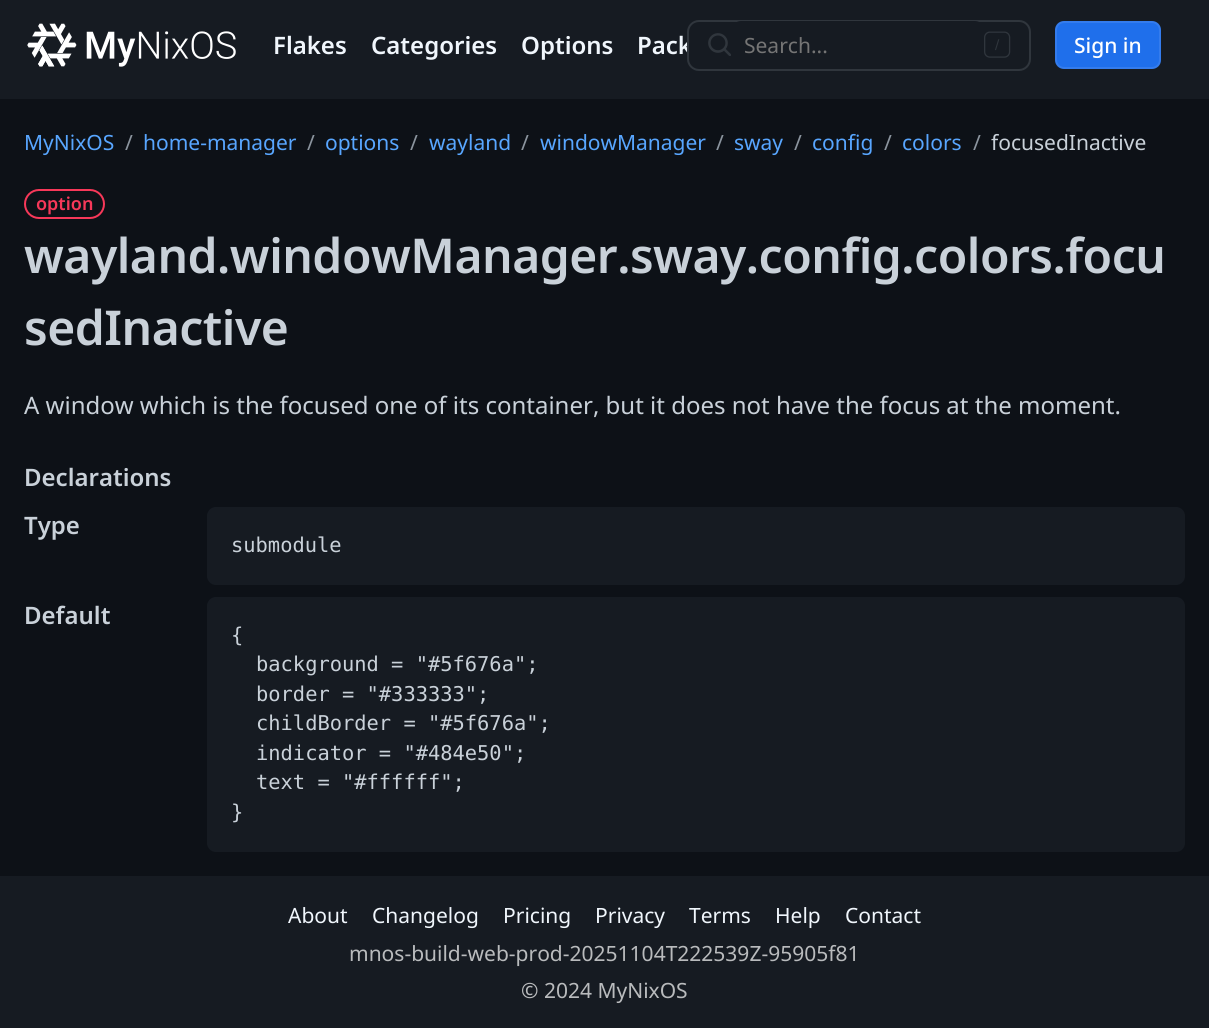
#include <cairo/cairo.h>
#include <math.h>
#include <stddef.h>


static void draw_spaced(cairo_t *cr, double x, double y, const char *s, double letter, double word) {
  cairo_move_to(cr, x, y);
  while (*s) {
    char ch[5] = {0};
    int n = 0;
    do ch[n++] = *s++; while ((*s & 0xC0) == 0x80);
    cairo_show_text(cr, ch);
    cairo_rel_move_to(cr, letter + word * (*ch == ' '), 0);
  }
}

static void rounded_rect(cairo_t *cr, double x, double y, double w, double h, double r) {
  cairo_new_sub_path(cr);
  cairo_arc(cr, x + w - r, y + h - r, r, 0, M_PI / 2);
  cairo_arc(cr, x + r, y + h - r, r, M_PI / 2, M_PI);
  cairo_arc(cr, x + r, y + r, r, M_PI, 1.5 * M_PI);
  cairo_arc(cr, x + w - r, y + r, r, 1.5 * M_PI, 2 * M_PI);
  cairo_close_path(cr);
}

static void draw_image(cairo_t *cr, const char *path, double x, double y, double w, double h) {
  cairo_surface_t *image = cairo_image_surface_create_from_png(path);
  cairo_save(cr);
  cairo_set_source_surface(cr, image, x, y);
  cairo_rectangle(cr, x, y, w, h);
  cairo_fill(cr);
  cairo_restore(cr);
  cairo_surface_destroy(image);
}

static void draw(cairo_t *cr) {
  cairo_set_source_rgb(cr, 13 / 255.0, 17 / 255.0, 23 / 255.0);
  cairo_paint(cr);
  cairo_set_source_rgb(cr, 22 / 255.0, 27 / 255.0, 34 / 255.0);
  cairo_rectangle(cr, 0, 0, 1209, 99);
  cairo_fill(cr);
  draw_image(cr, "images/1.png", 27, 23, 209, 44);
  rounded_rect(cr, 688, 21, 342, 49, 11);
  cairo_set_source_rgb(cr, 48 / 255.0, 54 / 255.0, 61 / 255.0);
  cairo_stroke(cr);
  draw_image(cr, "images/2.png", 708, 33, 23, 23);
  cairo_set_source_rgb(cr, 22 / 255.0, 27 / 255.0, 34 / 255.0);
  rounded_rect(cr, 732, 21, 252, 48, 9);
  cairo_fill(cr);
  draw_image(cr, "images/3.png", 984, 31, 27, 27);
  cairo_set_source_rgb(cr, 31 / 255.0, 111 / 255.0, 235 / 255.0);
  rounded_rect(cr, 1055, 21, 106, 48, 9);
  cairo_fill(cr);
  rounded_rect(cr, 1056, 22, 104, 46, 8);
  cairo_set_source_rgba(cr, 240 / 255.0, 246 / 255.0, 252 / 255.0, 0.1);
  cairo_stroke(cr);
  rounded_rect(cr, 25, 190, 79, 28, 14);
  cairo_set_source_rgb(cr, 247 / 255.0, 56 / 255.0, 89 / 255.0);
  cairo_stroke(cr);
  cairo_set_source_rgb(cr, 22 / 255.0, 27 / 255.0, 34 / 255.0);
  rounded_rect(cr, 207, 507, 978, 78, 9);
  cairo_fill(cr);
  rounded_rect(cr, 207, 597, 978, 255, 9);
  cairo_fill(cr);
  cairo_rectangle(cr, 0, 876, 1209, 152);
  cairo_fill(cr);
  cairo_select_font_face(cr, "Noto Sans SemiBold", CAIRO_FONT_SLANT_NORMAL, CAIRO_FONT_WEIGHT_NORMAL);
  cairo_set_font_size(cr, 24);
  cairo_set_source_rgb(cr, 240 / 255.0, 246 / 255.0, 252 / 255.0);
  cairo_move_to(cr, 273, 54);
  cairo_show_text(cr, "Flakes");
  cairo_move_to(cr, 371, 54);
  cairo_show_text(cr, "Categories");
  cairo_move_to(cr, 521, 54);
  cairo_show_text(cr, "Options");
  cairo_save(cr);
  cairo_rectangle(cr, 273, 27, 414, 36);
  cairo_clip(cr);
  cairo_move_to(cr, 637, 54);
  cairo_show_text(cr, "Pack");
  cairo_restore(cr);
  cairo_select_font_face(cr, "Noto Sans", CAIRO_FONT_SLANT_NORMAL, CAIRO_FONT_WEIGHT_NORMAL);
  cairo_set_font_size(cr, 21);
  cairo_set_source_rgb(cr, 117 / 255.0, 117 / 255.0, 117 / 255.0);
  cairo_move_to(cr, 744, 53);
  cairo_show_text(cr, "Search...");
  cairo_select_font_face(cr, "Noto Sans Medium", CAIRO_FONT_SLANT_NORMAL, CAIRO_FONT_WEIGHT_NORMAL);
  cairo_set_source_rgb(cr, 1, 1, 1);
  cairo_move_to(cr, 1074, 53);
  cairo_show_text(cr, "Sign in");
  cairo_select_font_face(cr, "Noto Sans", CAIRO_FONT_SLANT_NORMAL, CAIRO_FONT_WEIGHT_NORMAL);
  cairo_set_source_rgb(cr, 88 / 255.0, 166 / 255.0, 1);
  cairo_move_to(cr, 24, 150);
  cairo_show_text(cr, "MyNixOS");
  cairo_set_source_rgb(cr, 139 / 255.0, 148 / 255.0, 158 / 255.0);
  cairo_move_to(cr, 125, 150);
  cairo_show_text(cr, "/");
  cairo_set_source_rgb(cr, 88 / 255.0, 166 / 255.0, 1);
  cairo_move_to(cr, 143, 150);
  cairo_show_text(cr, "home-manager");
  cairo_set_source_rgb(cr, 139 / 255.0, 148 / 255.0, 158 / 255.0);
  cairo_move_to(cr, 307, 150);
  cairo_show_text(cr, "/");
  cairo_set_source_rgb(cr, 88 / 255.0, 166 / 255.0, 1);
  cairo_move_to(cr, 325, 150);
  cairo_show_text(cr, "options");
  cairo_set_source_rgb(cr, 139 / 255.0, 148 / 255.0, 158 / 255.0);
  cairo_move_to(cr, 410, 150);
  cairo_show_text(cr, "/");
  cairo_set_source_rgb(cr, 88 / 255.0, 166 / 255.0, 1);
  cairo_move_to(cr, 429, 150);
  cairo_show_text(cr, "wayland");
  cairo_set_source_rgb(cr, 139 / 255.0, 148 / 255.0, 158 / 255.0);
  cairo_move_to(cr, 521, 150);
  cairo_show_text(cr, "/");
  cairo_set_source_rgb(cr, 88 / 255.0, 166 / 255.0, 1);
  cairo_move_to(cr, 540, 150);
  cairo_show_text(cr, "windowManager");
  cairo_set_source_rgb(cr, 139 / 255.0, 148 / 255.0, 158 / 255.0);
  cairo_move_to(cr, 716, 150);
  cairo_show_text(cr, "/");
  cairo_set_source_rgb(cr, 88 / 255.0, 166 / 255.0, 1);
  cairo_move_to(cr, 734, 150);
  cairo_show_text(cr, "sway");
  cairo_set_source_rgb(cr, 139 / 255.0, 148 / 255.0, 158 / 255.0);
  cairo_move_to(cr, 794, 150);
  cairo_show_text(cr, "/");
  cairo_set_source_rgb(cr, 88 / 255.0, 166 / 255.0, 1);
  cairo_move_to(cr, 812, 150);
  cairo_show_text(cr, "config");
  cairo_set_source_rgb(cr, 139 / 255.0, 148 / 255.0, 158 / 255.0);
  cairo_move_to(cr, 884, 150);
  cairo_show_text(cr, "/");
  cairo_set_source_rgb(cr, 88 / 255.0, 166 / 255.0, 1);
  cairo_move_to(cr, 902, 150);
  cairo_show_text(cr, "colors");
  cairo_set_source_rgb(cr, 139 / 255.0, 148 / 255.0, 158 / 255.0);
  cairo_move_to(cr, 973, 150);
  cairo_show_text(cr, "/");
  cairo_set_source_rgb(cr, 201 / 255.0, 209 / 255.0, 217 / 255.0);
  cairo_move_to(cr, 991, 150);
  cairo_show_text(cr, "focusedInactive");
  cairo_select_font_face(cr, "Noto Sans SemiBold", CAIRO_FONT_SLANT_NORMAL, CAIRO_FONT_WEIGHT_NORMAL);
  cairo_set_font_size(cr, 18);
  cairo_set_source_rgb(cr, 247 / 255.0, 56 / 255.0, 89 / 255.0);
  cairo_move_to(cr, 36, 210);
  cairo_show_text(cr, "option");
  cairo_set_font_size(cr, 48);
  cairo_set_source_rgb(cr, 201 / 255.0, 209 / 255.0, 217 / 255.0);
  draw_spaced(cr, 24, 273, "wayland.windowManager.sway.config.colors.focu", -0.5, 0);
  draw_spaced(cr, 24, 345, "sedInactive", -0.5, 0);
  cairo_select_font_face(cr, "Noto Sans", CAIRO_FONT_SLANT_NORMAL, CAIRO_FONT_WEIGHT_NORMAL);
  cairo_set_font_size(cr, 24);
  cairo_move_to(cr, 24, 414);
  cairo_show_text(cr, "A window which is the focused one of its container, but it does not have the focus at the moment.");
  cairo_select_font_face(cr, "Noto Sans SemiBold", CAIRO_FONT_SLANT_NORMAL, CAIRO_FONT_WEIGHT_NORMAL);
  cairo_move_to(cr, 24, 486);
  cairo_show_text(cr, "Declarations");
  cairo_move_to(cr, 24, 534);
  cairo_show_text(cr, "Type");
  cairo_select_font_face(cr, "DejaVu Sans Mono", CAIRO_FONT_SLANT_NORMAL, CAIRO_FONT_WEIGHT_NORMAL);
  cairo_set_font_size(cr, 20.4);
  cairo_move_to(cr, 231, 552);
  cairo_show_text(cr, "submodule");
  cairo_select_font_face(cr, "Noto Sans SemiBold", CAIRO_FONT_SLANT_NORMAL, CAIRO_FONT_WEIGHT_NORMAL);
  cairo_set_font_size(cr, 24);
  cairo_move_to(cr, 24, 624);
  cairo_show_text(cr, "Default");
  cairo_select_font_face(cr, "DejaVu Sans Mono", CAIRO_FONT_SLANT_NORMAL, CAIRO_FONT_WEIGHT_NORMAL);
  cairo_set_font_size(cr, 20.4);
  cairo_move_to(cr, 231, 642);
  cairo_show_text(cr, "{");
  cairo_move_to(cr, 256, 671);
  cairo_show_text(cr, "background = \"#5f676a\";");
  cairo_move_to(cr, 256, 701);
  cairo_show_text(cr, "border = \"#333333\";");
  cairo_move_to(cr, 256, 730);
  cairo_show_text(cr, "childBorder = \"#5f676a\";");
  cairo_move_to(cr, 256, 760);
  cairo_show_text(cr, "indicator = \"#484e50\";");
  cairo_move_to(cr, 256, 789);
  cairo_show_text(cr, "text = \"#ffffff\";");
  cairo_move_to(cr, 231, 819);
  cairo_show_text(cr, "}");
  cairo_select_font_face(cr, "Noto Sans", CAIRO_FONT_SLANT_NORMAL, CAIRO_FONT_WEIGHT_NORMAL);
  cairo_set_font_size(cr, 21);
  cairo_set_source_rgb(cr, 240 / 255.0, 246 / 255.0, 252 / 255.0);
  cairo_move_to(cr, 288, 923);
  cairo_show_text(cr, "About");
  cairo_move_to(cr, 372, 923);
  cairo_show_text(cr, "Changelog");
  cairo_move_to(cr, 503, 923);
  cairo_show_text(cr, "Pricing");
  cairo_move_to(cr, 595, 923);
  cairo_show_text(cr, "Privacy");
  cairo_move_to(cr, 689, 923);
  cairo_show_text(cr, "Terms");
  cairo_move_to(cr, 775, 923);
  cairo_show_text(cr, "Help");
  cairo_move_to(cr, 845, 923);
  cairo_show_text(cr, "Contact");
  cairo_set_source_rgb(cr, 185 / 255.0, 187 / 255.0, 189 / 255.0);
  cairo_move_to(cr, 349, 961);
  cairo_show_text(cr, "mnos-build-web-prod-20251104T222539Z-95905f81");
  cairo_move_to(cr, 521, 998);
  cairo_show_text(cr, "© 2024 MyNixOS");
}

int main(void) {
  cairo_surface_t *surface = cairo_image_surface_create(CAIRO_FORMAT_RGB24, 1209, 1028);
  cairo_t *cr = cairo_create(surface);
  cairo_font_options_t *options = cairo_font_options_create();
  cairo_font_options_set_hint_metrics(options, CAIRO_HINT_METRICS_OFF);
  cairo_font_options_set_hint_style(options, CAIRO_HINT_STYLE_NONE);
  cairo_set_font_options(cr, options);
  cairo_set_miter_limit(cr, 4);
  draw(cr);
  cairo_surface_write_to_png(surface, "out.png");
  cairo_font_options_destroy(options);
  cairo_destroy(cr);
  cairo_surface_destroy(surface);
  return 0;
}
